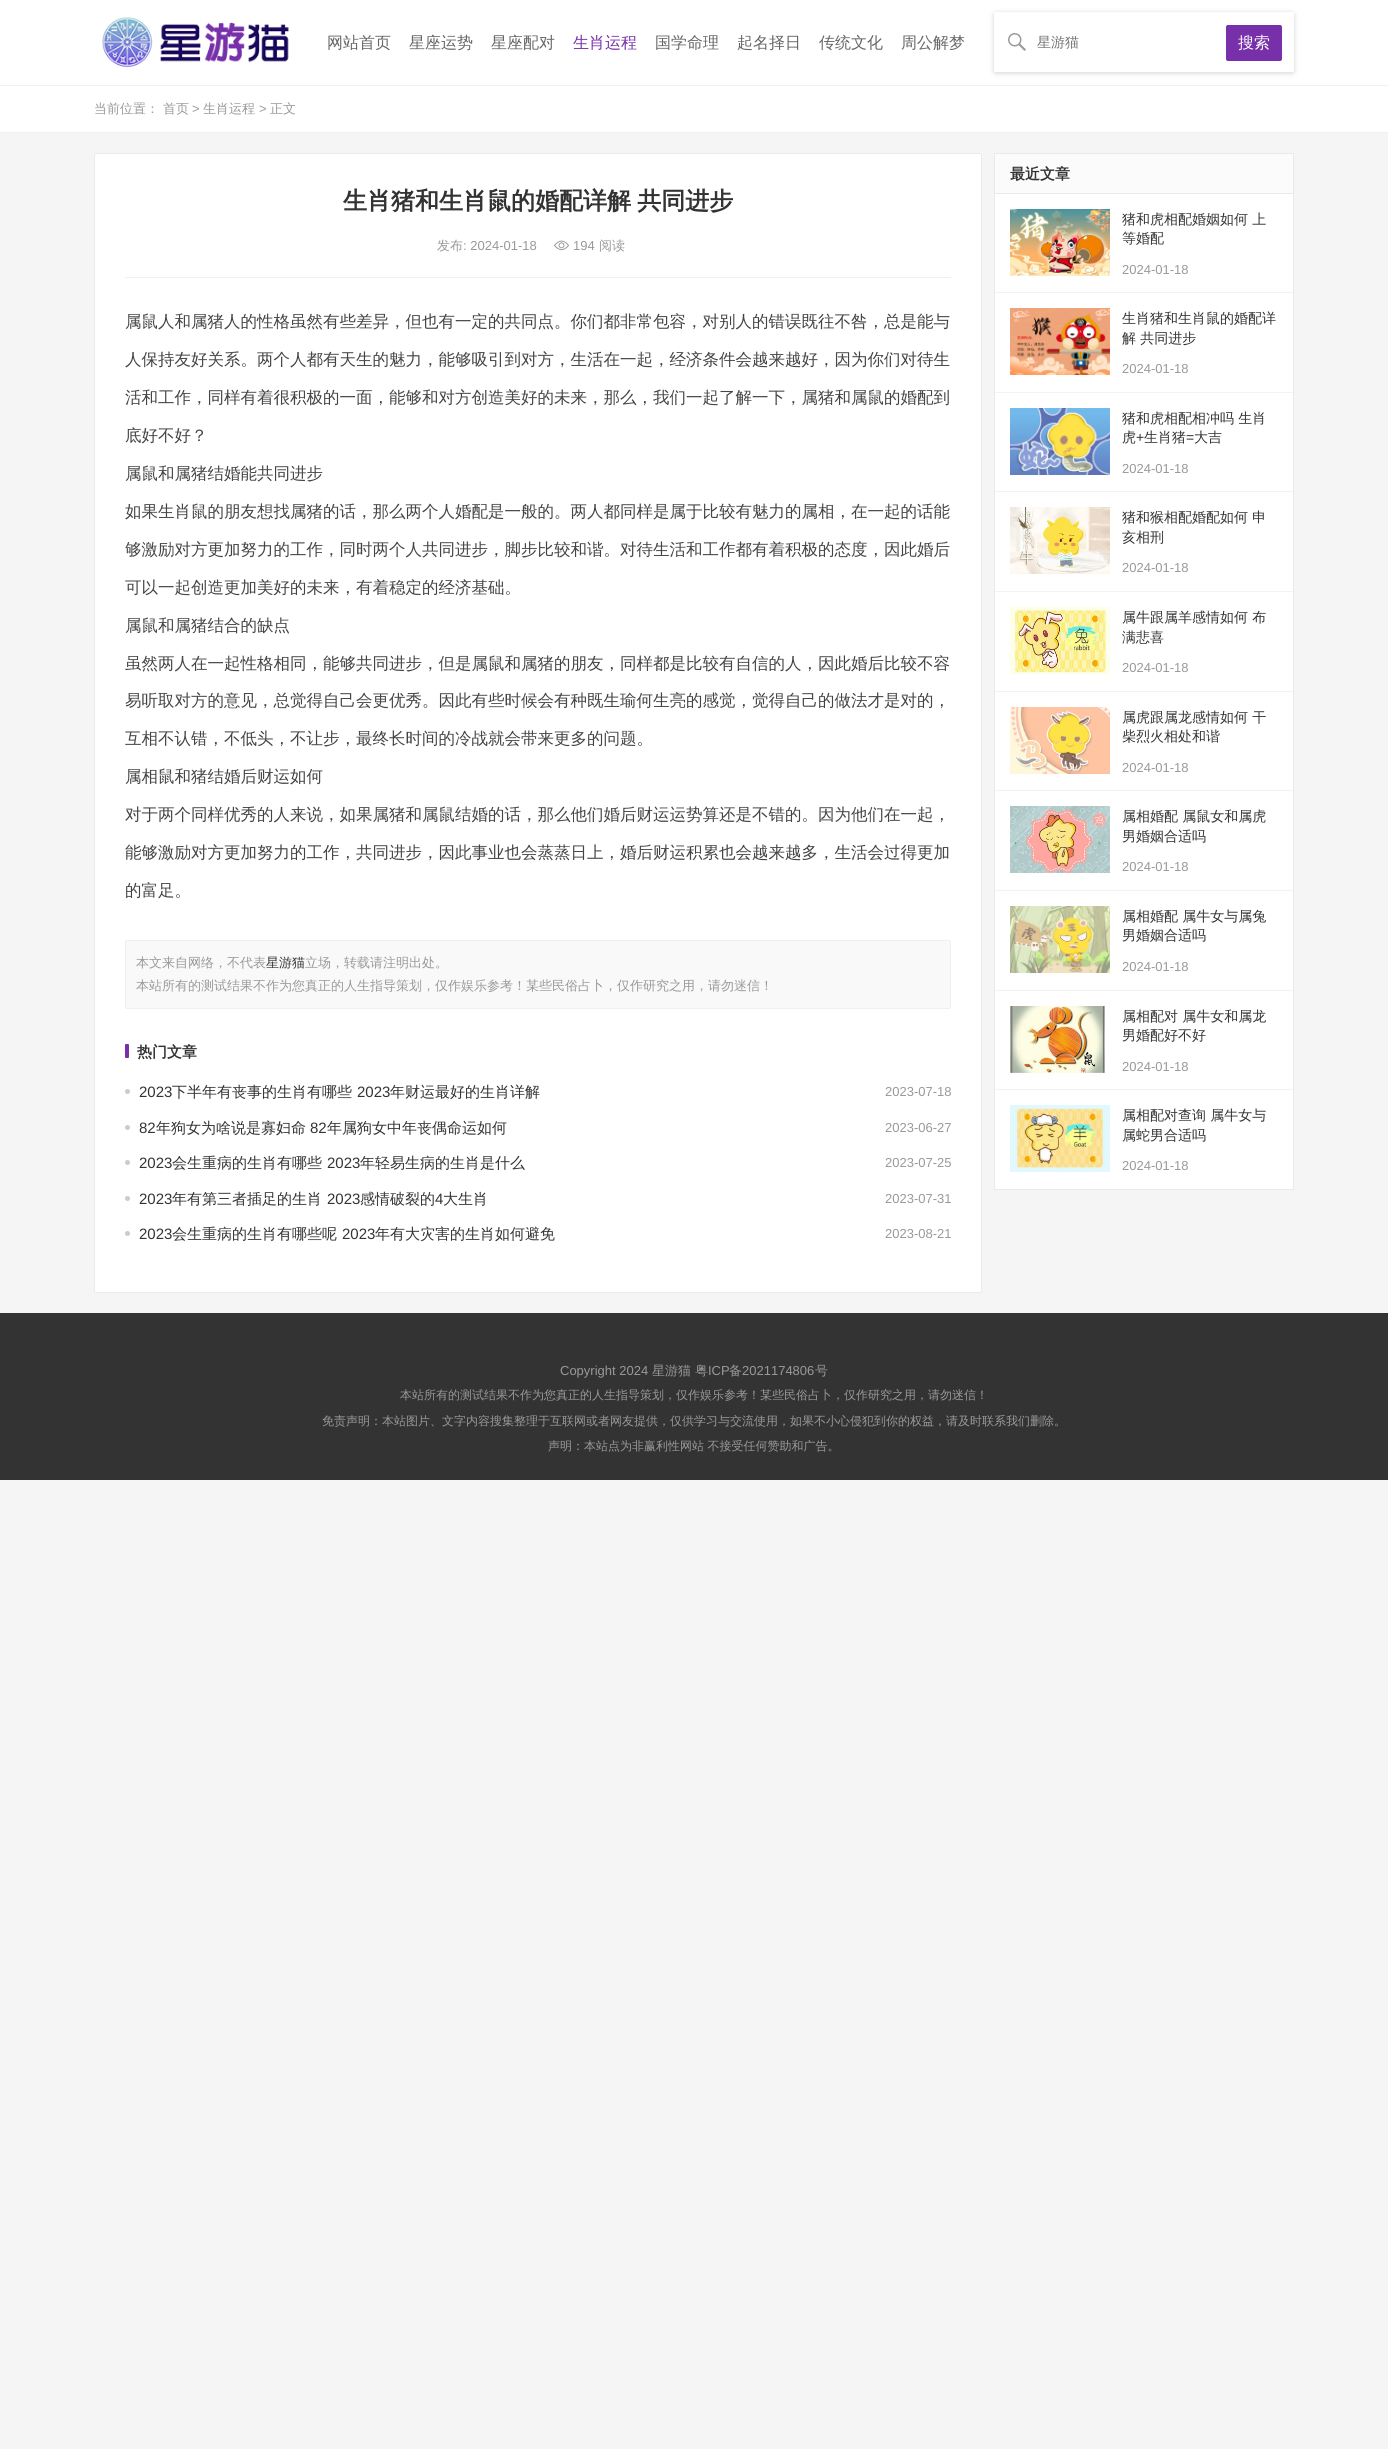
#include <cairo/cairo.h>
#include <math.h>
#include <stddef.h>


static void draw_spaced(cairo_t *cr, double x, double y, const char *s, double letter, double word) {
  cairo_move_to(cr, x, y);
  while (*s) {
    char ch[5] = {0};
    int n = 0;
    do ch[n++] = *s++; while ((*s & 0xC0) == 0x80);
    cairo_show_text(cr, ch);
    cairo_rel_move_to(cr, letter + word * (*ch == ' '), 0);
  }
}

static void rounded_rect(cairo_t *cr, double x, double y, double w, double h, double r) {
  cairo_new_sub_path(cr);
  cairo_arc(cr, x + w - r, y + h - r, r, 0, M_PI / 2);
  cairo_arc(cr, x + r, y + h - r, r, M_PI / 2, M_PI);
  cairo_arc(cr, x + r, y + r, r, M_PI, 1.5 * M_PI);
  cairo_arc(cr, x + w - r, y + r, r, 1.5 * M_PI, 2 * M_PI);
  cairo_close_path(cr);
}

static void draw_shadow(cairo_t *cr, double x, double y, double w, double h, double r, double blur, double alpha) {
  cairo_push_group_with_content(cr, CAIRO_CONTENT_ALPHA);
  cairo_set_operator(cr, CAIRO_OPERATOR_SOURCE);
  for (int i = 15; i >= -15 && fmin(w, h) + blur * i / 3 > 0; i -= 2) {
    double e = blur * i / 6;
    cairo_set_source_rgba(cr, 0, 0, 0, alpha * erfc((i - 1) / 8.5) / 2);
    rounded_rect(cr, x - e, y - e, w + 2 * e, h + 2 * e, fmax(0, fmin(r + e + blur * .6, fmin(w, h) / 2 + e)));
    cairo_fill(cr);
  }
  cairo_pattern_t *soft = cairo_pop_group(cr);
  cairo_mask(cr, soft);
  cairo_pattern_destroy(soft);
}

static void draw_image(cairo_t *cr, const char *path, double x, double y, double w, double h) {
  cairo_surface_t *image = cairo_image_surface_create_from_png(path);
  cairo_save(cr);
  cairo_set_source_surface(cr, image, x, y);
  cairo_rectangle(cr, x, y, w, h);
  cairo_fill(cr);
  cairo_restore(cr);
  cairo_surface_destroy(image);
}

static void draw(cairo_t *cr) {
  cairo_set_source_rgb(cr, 245 / 255.0, 245 / 255.0, 245 / 255.0);
  cairo_paint(cr);
  cairo_set_source_rgb(cr, 1, 1, 1);
  cairo_rectangle(cr, 0, 0, 1388, 85);
  cairo_fill(cr);
  draw_image(cr, "images/1.png", 102, 17, 187, 50);
  cairo_set_source_rgb(cr, 190 / 255.0, 190 / 255.0, 190 / 255.0);
  draw_shadow(cr, 994, 13, 300, 60, 2, 2.5, 0.7);
  cairo_set_source_rgb(cr, 1, 1, 1);
  cairo_rectangle(cr, 994, 12, 300, 60);
  cairo_fill(cr);
  draw_image(cr, "images/2.png", 1008, 33, 18, 18);
  cairo_set_source_rgb(cr, 120 / 255.0, 47 / 255.0, 170 / 255.0);
  rounded_rect(cr, 1226, 25, 56, 36, 2);
  cairo_fill(cr);
  cairo_set_source_rgb(cr, 1, 1, 1);
  cairo_rectangle(cr, 0, 86, 1388, 46);
  cairo_fill(cr);
  cairo_set_source_rgb(cr, 240 / 255.0, 240 / 255.0, 240 / 255.0);
  cairo_rectangle(cr, 0, 85, 1388, 1);
  cairo_fill(cr);
  cairo_rectangle(cr, 0, 132, 1388, 1);
  cairo_fill(cr);
  cairo_set_source_rgb(cr, 1, 1, 1);
  rounded_rect(cr, 94.5, 153.5, 887, 1139, 1.5);
  cairo_fill_preserve(cr);
  cairo_set_source_rgb(cr, 234 / 255.0, 234 / 255.0, 234 / 255.0);
  cairo_set_line_width(cr, 1);
  cairo_stroke(cr);
  cairo_set_source_rgb(cr, 240 / 255.0, 240 / 255.0, 240 / 255.0);
  cairo_rectangle(cr, 125, 277, 826, 1);
  cairo_fill(cr);
  draw_image(cr, "images/3.png", 554, 240, 15, 11);
  cairo_set_source_rgb(cr, 249 / 255.0, 249 / 255.0, 249 / 255.0);
  rounded_rect(cr, 125.5, 940.5, 825, 68, 1.5);
  cairo_fill_preserve(cr);
  cairo_set_source_rgb(cr, 239 / 255.0, 239 / 255.0, 239 / 255.0);
  cairo_stroke(cr);
  cairo_set_source_rgb(cr, 120 / 255.0, 47 / 255.0, 170 / 255.0);
  rounded_rect(cr, 125, 1044, 4, 14, 1);
  cairo_fill(cr);
  cairo_set_source_rgb(cr, 204 / 255.0, 204 / 255.0, 204 / 255.0);
  cairo_arc(cr, 127.5, 1091.5, 2.5, 0, 2 * M_PI);
  cairo_fill(cr);
  cairo_arc(cr, 127.5, 1127.5, 2.5, 0, 2 * M_PI);
  cairo_fill(cr);
  cairo_arc(cr, 127.5, 1162.5, 2.5, 0, 2 * M_PI);
  cairo_fill(cr);
  cairo_arc(cr, 127.5, 1198.5, 2.5, 0, 2 * M_PI);
  cairo_fill(cr);
  cairo_arc(cr, 127.5, 1233.5, 2.5, 0, 2 * M_PI);
  cairo_fill(cr);
  cairo_set_source_rgb(cr, 1, 1, 1);
  cairo_rectangle(cr, 994.5, 153.5, 299, 1036);
  cairo_fill_preserve(cr);
  cairo_set_source_rgb(cr, 234 / 255.0, 234 / 255.0, 234 / 255.0);
  cairo_stroke(cr);
  cairo_set_source_rgb(cr, 251 / 255.0, 251 / 255.0, 251 / 255.0);
  cairo_new_path(cr);
  cairo_move_to(cr, 997, 154);
  cairo_line_to(cr, 1291, 154);
  cairo_curve_to(cr, 1292, 154, 1293, 155, 1293, 156);
  cairo_line_to(cr, 1293, 194);
  cairo_line_to(cr, 995, 194);
  cairo_line_to(cr, 995, 156);
  cairo_curve_to(cr, 995, 155, 996, 154, 997, 154);
  cairo_close_path(cr);
  cairo_fill(cr);
  cairo_set_source_rgb(cr, 234 / 255.0, 234 / 255.0, 234 / 255.0);
  cairo_rectangle(cr, 995, 193, 298, 1);
  cairo_fill(cr);
  cairo_set_source_rgb(cr, 243 / 255.0, 243 / 255.0, 243 / 255.0);
  cairo_rectangle(cr, 995, 292, 298, 1);
  cairo_fill(cr);
  draw_image(cr, "images/4.png", 1010, 209, 100, 67);
  cairo_rectangle(cr, 995, 392, 298, 1);
  cairo_fill(cr);
  draw_image(cr, "images/5.png", 1010, 308, 100, 67);
  cairo_rectangle(cr, 995, 491, 298, 1);
  cairo_fill(cr);
  draw_image(cr, "images/6.png", 1010, 408, 100, 67);
  cairo_rectangle(cr, 995, 591, 298, 1);
  cairo_fill(cr);
  draw_image(cr, "images/7.png", 1010, 507, 100, 67);
  cairo_rectangle(cr, 995, 691, 298, 1);
  cairo_fill(cr);
  draw_image(cr, "images/8.png", 1010, 607, 100, 67);
  cairo_rectangle(cr, 995, 790, 298, 1);
  cairo_fill(cr);
  draw_image(cr, "images/9.png", 1010, 707, 100, 67);
  cairo_rectangle(cr, 995, 890, 298, 1);
  cairo_fill(cr);
  draw_image(cr, "images/10.png", 1010, 806, 100, 67);
  cairo_rectangle(cr, 995, 990, 298, 1);
  cairo_fill(cr);
  draw_image(cr, "images/11.png", 1010, 906, 100, 67);
  cairo_rectangle(cr, 995, 1089, 298, 1);
  cairo_fill(cr);
  draw_image(cr, "images/12.png", 1010, 1006, 95, 67);
  draw_image(cr, "images/13.png", 1010, 1105, 100, 67);
  cairo_set_source_rgb(cr, 51 / 255.0, 51 / 255.0, 51 / 255.0);
  cairo_rectangle(cr, 0, 1313, 1388, 167);
  cairo_fill(cr);
  cairo_select_font_face(cr, "WenQuanYi Zen Hei Medium", CAIRO_FONT_SLANT_NORMAL, CAIRO_FONT_WEIGHT_NORMAL);
  cairo_set_font_size(cr, 16);
  cairo_set_source_rgb(cr, 102 / 255.0, 102 / 255.0, 102 / 255.0);
  cairo_move_to(cr, 327, 48);
  cairo_show_text(cr, "网站首页");
  cairo_move_to(cr, 409, 48);
  cairo_show_text(cr, "星座运势");
  cairo_move_to(cr, 491, 48);
  cairo_show_text(cr, "星座配对");
  cairo_set_source_rgb(cr, 120 / 255.0, 47 / 255.0, 170 / 255.0);
  cairo_move_to(cr, 573, 48);
  cairo_show_text(cr, "生肖运程");
  cairo_set_source_rgb(cr, 102 / 255.0, 102 / 255.0, 102 / 255.0);
  cairo_move_to(cr, 655, 48);
  cairo_show_text(cr, "国学命理");
  cairo_move_to(cr, 737, 48);
  cairo_show_text(cr, "起名择日");
  cairo_move_to(cr, 819, 48);
  cairo_show_text(cr, "传统文化");
  cairo_move_to(cr, 901, 48);
  cairo_show_text(cr, "周公解梦");
  cairo_set_font_size(cr, 14);
  cairo_set_source_rgb(cr, 117 / 255.0, 117 / 255.0, 117 / 255.0);
  cairo_move_to(cr, 1037, 47);
  cairo_show_text(cr, "星游猫");
  cairo_set_font_size(cr, 16);
  cairo_set_source_rgb(cr, 1, 1, 1);
  cairo_move_to(cr, 1238, 48);
  cairo_show_text(cr, "搜索");
  cairo_set_font_size(cr, 13);
  cairo_set_source_rgb(cr, 153 / 255.0, 153 / 255.0, 153 / 255.0);
  cairo_move_to(cr, 94, 113);
  cairo_show_text(cr, "当前位置： 首页");
  cairo_select_font_face(cr, "Liberation Sans", CAIRO_FONT_SLANT_NORMAL, CAIRO_FONT_WEIGHT_NORMAL);
  cairo_move_to(cr, 192, 113);
  cairo_show_text(cr, ">");
  cairo_select_font_face(cr, "WenQuanYi Zen Hei Medium", CAIRO_FONT_SLANT_NORMAL, CAIRO_FONT_WEIGHT_NORMAL);
  cairo_move_to(cr, 203, 113);
  cairo_show_text(cr, "生肖运程");
  cairo_select_font_face(cr, "Liberation Sans", CAIRO_FONT_SLANT_NORMAL, CAIRO_FONT_WEIGHT_NORMAL);
  cairo_move_to(cr, 259, 113);
  cairo_show_text(cr, ">");
  cairo_select_font_face(cr, "WenQuanYi Zen Hei Medium", CAIRO_FONT_SLANT_NORMAL, CAIRO_FONT_WEIGHT_NORMAL);
  cairo_move_to(cr, 270, 113);
  cairo_show_text(cr, "正文");
  cairo_select_font_face(cr, "WenQuanYi Zen Hei", CAIRO_FONT_SLANT_NORMAL, CAIRO_FONT_WEIGHT_BOLD);
  cairo_set_font_size(cr, 24);
  cairo_set_source_rgb(cr, 51 / 255.0, 51 / 255.0, 51 / 255.0);
  draw_spaced(cr, 343, 209, "生肖猪和生肖鼠的婚配详解 共同进步", 0, -1);
  cairo_select_font_face(cr, "WenQuanYi Zen Hei Medium", CAIRO_FONT_SLANT_NORMAL, CAIRO_FONT_WEIGHT_NORMAL);
  cairo_set_font_size(cr, 13);
  cairo_set_source_rgb(cr, 153 / 255.0, 153 / 255.0, 153 / 255.0);
  cairo_move_to(cr, 437, 250);
  cairo_show_text(cr, "发布");
  cairo_select_font_face(cr, "Liberation Sans", CAIRO_FONT_SLANT_NORMAL, CAIRO_FONT_WEIGHT_NORMAL);
  cairo_move_to(cr, 463, 250);
  cairo_show_text(cr, ": 2024-01-18");
  cairo_move_to(cr, 573, 250);
  cairo_show_text(cr, "194");
  cairo_select_font_face(cr, "WenQuanYi Zen Hei Medium", CAIRO_FONT_SLANT_NORMAL, CAIRO_FONT_WEIGHT_NORMAL);
  cairo_move_to(cr, 599, 250);
  cairo_show_text(cr, "阅读");
  cairo_set_font_size(cr, 16.5);
  cairo_set_source_rgb(cr, 68 / 255.0, 68 / 255.0, 68 / 255.0);
  cairo_move_to(cr, 125, 327);
  cairo_show_text(cr, "属鼠人和属猪人的性格虽然有些差异，但也有一定的共同点。你们都非常包容，对别人的错误既往不咎，总是能与");
  cairo_move_to(cr, 125, 365);
  cairo_show_text(cr, "人保持友好关系。两个人都有天生的魅力，能够吸引到对方，生活在一起，经济条件会越来越好，因为你们对待生");
  cairo_move_to(cr, 125, 403);
  cairo_show_text(cr, "活和工作，同样有着很积极的一面，能够和对方创造美好的未来，那么，我们一起了解一下，属猪和属鼠的婚配到");
  cairo_move_to(cr, 125, 441);
  cairo_show_text(cr, "底好不好？");
  cairo_move_to(cr, 125, 479);
  cairo_show_text(cr, "属鼠和属猪结婚能共同进步");
  cairo_move_to(cr, 125, 517);
  cairo_show_text(cr, "如果生肖鼠的朋友想找属猪的话，那么两个人婚配是一般的。两人都同样是属于比较有魅力的属相，在一起的话能");
  cairo_move_to(cr, 125, 555);
  cairo_show_text(cr, "够激励对方更加努力的工作，同时两个人共同进步，脚步比较和谐。对待生活和工作都有着积极的态度，因此婚后");
  cairo_move_to(cr, 125, 593);
  cairo_show_text(cr, "可以一起创造更加美好的未来，有着稳定的经济基础。");
  cairo_move_to(cr, 125, 631);
  cairo_show_text(cr, "属鼠和属猪结合的缺点");
  cairo_move_to(cr, 125, 669);
  cairo_show_text(cr, "虽然两人在一起性格相同，能够共同进步，但是属鼠和属猪的朋友，同样都是比较有自信的人，因此婚后比较不容");
  cairo_move_to(cr, 125, 706);
  cairo_show_text(cr, "易听取对方的意见，总觉得自己会更优秀。因此有些时候会有种既生瑜何生亮的感觉，觉得自己的做法才是对的，");
  cairo_move_to(cr, 125, 744);
  cairo_show_text(cr, "互相不认错，不低头，不让步，最终长时间的冷战就会带来更多的问题。");
  cairo_move_to(cr, 125, 782);
  cairo_show_text(cr, "属相鼠和猪结婚后财运如何");
  cairo_move_to(cr, 125, 820);
  cairo_show_text(cr, "对于两个同样优秀的人来说，如果属猪和属鼠结婚的话，那么他们婚后财运运势算还是不错的。因为他们在一起，");
  cairo_move_to(cr, 125, 858);
  cairo_show_text(cr, "能够激励对方更加努力的工作，共同进步，因此事业也会蒸蒸日上，婚后财运积累也会越来越多，生活会过得更加");
  cairo_move_to(cr, 125, 896);
  cairo_show_text(cr, "的富足。");
  cairo_set_font_size(cr, 13);
  cairo_set_source_rgb(cr, 153 / 255.0, 153 / 255.0, 153 / 255.0);
  cairo_move_to(cr, 136, 967);
  cairo_show_text(cr, "本文来自网络，不代表");
  cairo_set_source_rgb(cr, 51 / 255.0, 51 / 255.0, 51 / 255.0);
  cairo_move_to(cr, 266, 967);
  cairo_show_text(cr, "星游猫");
  cairo_set_source_rgb(cr, 153 / 255.0, 153 / 255.0, 153 / 255.0);
  cairo_move_to(cr, 305, 967);
  cairo_show_text(cr, "立场，转载请注明出处。");
  cairo_move_to(cr, 136, 990);
  cairo_show_text(cr, "本站所有的测试结果不作为您真正的人生指导策划，仅作娱乐参考！某些民俗占卜，仅作研究之用，请勿迷信！");
  cairo_select_font_face(cr, "WenQuanYi Zen Hei", CAIRO_FONT_SLANT_NORMAL, CAIRO_FONT_WEIGHT_BOLD);
  cairo_set_font_size(cr, 15);
  cairo_set_source_rgb(cr, 51 / 255.0, 51 / 255.0, 51 / 255.0);
  cairo_move_to(cr, 137, 1057);
  cairo_show_text(cr, "热门文章");
  cairo_select_font_face(cr, "Liberation Sans", CAIRO_FONT_SLANT_NORMAL, CAIRO_FONT_WEIGHT_NORMAL);
  cairo_move_to(cr, 139, 1097);
  cairo_show_text(cr, "2023");
  cairo_select_font_face(cr, "WenQuanYi Zen Hei Medium", CAIRO_FONT_SLANT_NORMAL, CAIRO_FONT_WEIGHT_NORMAL);
  cairo_move_to(cr, 172, 1097);
  cairo_show_text(cr, "下半年有丧事的生肖有哪些");
  cairo_select_font_face(cr, "Liberation Sans", CAIRO_FONT_SLANT_NORMAL, CAIRO_FONT_WEIGHT_NORMAL);
  cairo_move_to(cr, 357, 1097);
  cairo_show_text(cr, "2023");
  cairo_select_font_face(cr, "WenQuanYi Zen Hei Medium", CAIRO_FONT_SLANT_NORMAL, CAIRO_FONT_WEIGHT_NORMAL);
  cairo_move_to(cr, 390, 1097);
  cairo_show_text(cr, "年财运最好的生肖详解");
  cairo_select_font_face(cr, "Liberation Sans", CAIRO_FONT_SLANT_NORMAL, CAIRO_FONT_WEIGHT_NORMAL);
  cairo_set_font_size(cr, 13);
  cairo_set_source_rgb(cr, 153 / 255.0, 153 / 255.0, 153 / 255.0);
  cairo_move_to(cr, 885, 1096);
  cairo_show_text(cr, "2023-07-18");
  cairo_set_font_size(cr, 15);
  cairo_set_source_rgb(cr, 51 / 255.0, 51 / 255.0, 51 / 255.0);
  cairo_move_to(cr, 139, 1133);
  cairo_show_text(cr, "82");
  cairo_select_font_face(cr, "WenQuanYi Zen Hei Medium", CAIRO_FONT_SLANT_NORMAL, CAIRO_FONT_WEIGHT_NORMAL);
  cairo_move_to(cr, 156, 1133);
  cairo_show_text(cr, "年狗女为啥说是寡妇命");
  cairo_select_font_face(cr, "Liberation Sans", CAIRO_FONT_SLANT_NORMAL, CAIRO_FONT_WEIGHT_NORMAL);
  cairo_move_to(cr, 310, 1133);
  cairo_show_text(cr, "82");
  cairo_select_font_face(cr, "WenQuanYi Zen Hei Medium", CAIRO_FONT_SLANT_NORMAL, CAIRO_FONT_WEIGHT_NORMAL);
  cairo_move_to(cr, 327, 1133);
  cairo_show_text(cr, "年属狗女中年丧偶命运如何");
  cairo_select_font_face(cr, "Liberation Sans", CAIRO_FONT_SLANT_NORMAL, CAIRO_FONT_WEIGHT_NORMAL);
  cairo_set_font_size(cr, 13);
  cairo_set_source_rgb(cr, 153 / 255.0, 153 / 255.0, 153 / 255.0);
  cairo_move_to(cr, 885, 1132);
  cairo_show_text(cr, "2023-06-27");
  cairo_set_font_size(cr, 15);
  cairo_set_source_rgb(cr, 51 / 255.0, 51 / 255.0, 51 / 255.0);
  cairo_move_to(cr, 139, 1168);
  cairo_show_text(cr, "2023");
  cairo_select_font_face(cr, "WenQuanYi Zen Hei Medium", CAIRO_FONT_SLANT_NORMAL, CAIRO_FONT_WEIGHT_NORMAL);
  cairo_move_to(cr, 172, 1168);
  cairo_show_text(cr, "会生重病的生肖有哪些");
  cairo_select_font_face(cr, "Liberation Sans", CAIRO_FONT_SLANT_NORMAL, CAIRO_FONT_WEIGHT_NORMAL);
  cairo_move_to(cr, 327, 1168);
  cairo_show_text(cr, "2023");
  cairo_select_font_face(cr, "WenQuanYi Zen Hei Medium", CAIRO_FONT_SLANT_NORMAL, CAIRO_FONT_WEIGHT_NORMAL);
  cairo_move_to(cr, 360, 1168);
  cairo_show_text(cr, "年轻易生病的生肖是什么");
  cairo_select_font_face(cr, "Liberation Sans", CAIRO_FONT_SLANT_NORMAL, CAIRO_FONT_WEIGHT_NORMAL);
  cairo_set_font_size(cr, 13);
  cairo_set_source_rgb(cr, 153 / 255.0, 153 / 255.0, 153 / 255.0);
  cairo_move_to(cr, 885, 1167);
  cairo_show_text(cr, "2023-07-25");
  cairo_set_font_size(cr, 15);
  cairo_set_source_rgb(cr, 51 / 255.0, 51 / 255.0, 51 / 255.0);
  cairo_move_to(cr, 139, 1204);
  cairo_show_text(cr, "2023");
  cairo_select_font_face(cr, "WenQuanYi Zen Hei Medium", CAIRO_FONT_SLANT_NORMAL, CAIRO_FONT_WEIGHT_NORMAL);
  cairo_move_to(cr, 172, 1204);
  cairo_show_text(cr, "年有第三者插足的生肖");
  cairo_select_font_face(cr, "Liberation Sans", CAIRO_FONT_SLANT_NORMAL, CAIRO_FONT_WEIGHT_NORMAL);
  cairo_move_to(cr, 327, 1204);
  cairo_show_text(cr, "2023");
  cairo_select_font_face(cr, "WenQuanYi Zen Hei Medium", CAIRO_FONT_SLANT_NORMAL, CAIRO_FONT_WEIGHT_NORMAL);
  cairo_move_to(cr, 360, 1204);
  cairo_show_text(cr, "感情破裂的");
  cairo_select_font_face(cr, "Liberation Sans", CAIRO_FONT_SLANT_NORMAL, CAIRO_FONT_WEIGHT_NORMAL);
  cairo_move_to(cr, 435, 1204);
  cairo_show_text(cr, "4");
  cairo_select_font_face(cr, "WenQuanYi Zen Hei Medium", CAIRO_FONT_SLANT_NORMAL, CAIRO_FONT_WEIGHT_NORMAL);
  cairo_move_to(cr, 443, 1204);
  cairo_show_text(cr, "大生肖");
  cairo_select_font_face(cr, "Liberation Sans", CAIRO_FONT_SLANT_NORMAL, CAIRO_FONT_WEIGHT_NORMAL);
  cairo_set_font_size(cr, 13);
  cairo_set_source_rgb(cr, 153 / 255.0, 153 / 255.0, 153 / 255.0);
  cairo_move_to(cr, 885, 1203);
  cairo_show_text(cr, "2023-07-31");
  cairo_set_font_size(cr, 15);
  cairo_set_source_rgb(cr, 51 / 255.0, 51 / 255.0, 51 / 255.0);
  cairo_move_to(cr, 139, 1239);
  cairo_show_text(cr, "2023");
  cairo_select_font_face(cr, "WenQuanYi Zen Hei Medium", CAIRO_FONT_SLANT_NORMAL, CAIRO_FONT_WEIGHT_NORMAL);
  cairo_move_to(cr, 172, 1239);
  cairo_show_text(cr, "会生重病的生肖有哪些呢");
  cairo_select_font_face(cr, "Liberation Sans", CAIRO_FONT_SLANT_NORMAL, CAIRO_FONT_WEIGHT_NORMAL);
  cairo_move_to(cr, 342, 1239);
  cairo_show_text(cr, "2023");
  cairo_select_font_face(cr, "WenQuanYi Zen Hei Medium", CAIRO_FONT_SLANT_NORMAL, CAIRO_FONT_WEIGHT_NORMAL);
  cairo_move_to(cr, 375, 1239);
  cairo_show_text(cr, "年有大灾害的生肖如何避免");
  cairo_select_font_face(cr, "Liberation Sans", CAIRO_FONT_SLANT_NORMAL, CAIRO_FONT_WEIGHT_NORMAL);
  cairo_set_font_size(cr, 13);
  cairo_set_source_rgb(cr, 153 / 255.0, 153 / 255.0, 153 / 255.0);
  cairo_move_to(cr, 885, 1238);
  cairo_show_text(cr, "2023-08-21");
  cairo_select_font_face(cr, "WenQuanYi Zen Hei", CAIRO_FONT_SLANT_NORMAL, CAIRO_FONT_WEIGHT_BOLD);
  cairo_set_font_size(cr, 15);
  cairo_set_source_rgb(cr, 51 / 255.0, 51 / 255.0, 51 / 255.0);
  cairo_move_to(cr, 1010, 179);
  cairo_show_text(cr, "最近文章");
  cairo_select_font_face(cr, "WenQuanYi Zen Hei Medium", CAIRO_FONT_SLANT_NORMAL, CAIRO_FONT_WEIGHT_NORMAL);
  cairo_set_font_size(cr, 14);
  cairo_move_to(cr, 1122, 224);
  cairo_show_text(cr, "猪和虎相配婚姻如何 上");
  cairo_move_to(cr, 1122, 243);
  cairo_show_text(cr, "等婚配");
  cairo_select_font_face(cr, "Liberation Sans", CAIRO_FONT_SLANT_NORMAL, CAIRO_FONT_WEIGHT_NORMAL);
  cairo_set_font_size(cr, 13);
  cairo_set_source_rgb(cr, 153 / 255.0, 153 / 255.0, 153 / 255.0);
  cairo_move_to(cr, 1122, 274);
  cairo_show_text(cr, "2024-01-18");
  cairo_select_font_face(cr, "WenQuanYi Zen Hei Medium", CAIRO_FONT_SLANT_NORMAL, CAIRO_FONT_WEIGHT_NORMAL);
  cairo_set_font_size(cr, 14);
  cairo_set_source_rgb(cr, 51 / 255.0, 51 / 255.0, 51 / 255.0);
  cairo_move_to(cr, 1122, 323);
  cairo_show_text(cr, "生肖猪和生肖鼠的婚配详");
  cairo_move_to(cr, 1122, 343);
  cairo_show_text(cr, "解 共同进步");
  cairo_select_font_face(cr, "Liberation Sans", CAIRO_FONT_SLANT_NORMAL, CAIRO_FONT_WEIGHT_NORMAL);
  cairo_set_font_size(cr, 13);
  cairo_set_source_rgb(cr, 153 / 255.0, 153 / 255.0, 153 / 255.0);
  cairo_move_to(cr, 1122, 373);
  cairo_show_text(cr, "2024-01-18");
  cairo_select_font_face(cr, "WenQuanYi Zen Hei Medium", CAIRO_FONT_SLANT_NORMAL, CAIRO_FONT_WEIGHT_NORMAL);
  cairo_set_font_size(cr, 14);
  cairo_set_source_rgb(cr, 51 / 255.0, 51 / 255.0, 51 / 255.0);
  cairo_move_to(cr, 1122, 423);
  cairo_show_text(cr, "猪和虎相配相冲吗 生肖");
  cairo_move_to(cr, 1122, 442);
  cairo_show_text(cr, "虎");
  cairo_select_font_face(cr, "Liberation Sans", CAIRO_FONT_SLANT_NORMAL, CAIRO_FONT_WEIGHT_NORMAL);
  cairo_move_to(cr, 1136, 442);
  cairo_show_text(cr, "+");
  cairo_select_font_face(cr, "WenQuanYi Zen Hei Medium", CAIRO_FONT_SLANT_NORMAL, CAIRO_FONT_WEIGHT_NORMAL);
  cairo_move_to(cr, 1144, 442);
  cairo_show_text(cr, "生肖猪");
  cairo_select_font_face(cr, "Liberation Sans", CAIRO_FONT_SLANT_NORMAL, CAIRO_FONT_WEIGHT_NORMAL);
  cairo_move_to(cr, 1186, 442);
  cairo_show_text(cr, "=");
  cairo_select_font_face(cr, "WenQuanYi Zen Hei Medium", CAIRO_FONT_SLANT_NORMAL, CAIRO_FONT_WEIGHT_NORMAL);
  cairo_move_to(cr, 1194, 442);
  cairo_show_text(cr, "大吉");
  cairo_select_font_face(cr, "Liberation Sans", CAIRO_FONT_SLANT_NORMAL, CAIRO_FONT_WEIGHT_NORMAL);
  cairo_set_font_size(cr, 13);
  cairo_set_source_rgb(cr, 153 / 255.0, 153 / 255.0, 153 / 255.0);
  cairo_move_to(cr, 1122, 473);
  cairo_show_text(cr, "2024-01-18");
  cairo_select_font_face(cr, "WenQuanYi Zen Hei Medium", CAIRO_FONT_SLANT_NORMAL, CAIRO_FONT_WEIGHT_NORMAL);
  cairo_set_font_size(cr, 14);
  cairo_set_source_rgb(cr, 51 / 255.0, 51 / 255.0, 51 / 255.0);
  cairo_move_to(cr, 1122, 522);
  cairo_show_text(cr, "猪和猴相配婚配如何 申");
  cairo_move_to(cr, 1122, 542);
  cairo_show_text(cr, "亥相刑");
  cairo_select_font_face(cr, "Liberation Sans", CAIRO_FONT_SLANT_NORMAL, CAIRO_FONT_WEIGHT_NORMAL);
  cairo_set_font_size(cr, 13);
  cairo_set_source_rgb(cr, 153 / 255.0, 153 / 255.0, 153 / 255.0);
  cairo_move_to(cr, 1122, 572);
  cairo_show_text(cr, "2024-01-18");
  cairo_select_font_face(cr, "WenQuanYi Zen Hei Medium", CAIRO_FONT_SLANT_NORMAL, CAIRO_FONT_WEIGHT_NORMAL);
  cairo_set_font_size(cr, 14);
  cairo_set_source_rgb(cr, 51 / 255.0, 51 / 255.0, 51 / 255.0);
  cairo_move_to(cr, 1122, 622);
  cairo_show_text(cr, "属牛跟属羊感情如何 布");
  cairo_move_to(cr, 1122, 642);
  cairo_show_text(cr, "满悲喜");
  cairo_select_font_face(cr, "Liberation Sans", CAIRO_FONT_SLANT_NORMAL, CAIRO_FONT_WEIGHT_NORMAL);
  cairo_set_font_size(cr, 13);
  cairo_set_source_rgb(cr, 153 / 255.0, 153 / 255.0, 153 / 255.0);
  cairo_move_to(cr, 1122, 672);
  cairo_show_text(cr, "2024-01-18");
  cairo_select_font_face(cr, "WenQuanYi Zen Hei Medium", CAIRO_FONT_SLANT_NORMAL, CAIRO_FONT_WEIGHT_NORMAL);
  cairo_set_font_size(cr, 14);
  cairo_set_source_rgb(cr, 51 / 255.0, 51 / 255.0, 51 / 255.0);
  cairo_move_to(cr, 1122, 722);
  cairo_show_text(cr, "属虎跟属龙感情如何 干");
  cairo_move_to(cr, 1122, 741);
  cairo_show_text(cr, "柴烈火相处和谐");
  cairo_select_font_face(cr, "Liberation Sans", CAIRO_FONT_SLANT_NORMAL, CAIRO_FONT_WEIGHT_NORMAL);
  cairo_set_font_size(cr, 13);
  cairo_set_source_rgb(cr, 153 / 255.0, 153 / 255.0, 153 / 255.0);
  cairo_move_to(cr, 1122, 772);
  cairo_show_text(cr, "2024-01-18");
  cairo_select_font_face(cr, "WenQuanYi Zen Hei Medium", CAIRO_FONT_SLANT_NORMAL, CAIRO_FONT_WEIGHT_NORMAL);
  cairo_set_font_size(cr, 14);
  cairo_set_source_rgb(cr, 51 / 255.0, 51 / 255.0, 51 / 255.0);
  cairo_move_to(cr, 1122, 821);
  cairo_show_text(cr, "属相婚配 属鼠女和属虎");
  cairo_move_to(cr, 1122, 841);
  cairo_show_text(cr, "男婚姻合适吗");
  cairo_select_font_face(cr, "Liberation Sans", CAIRO_FONT_SLANT_NORMAL, CAIRO_FONT_WEIGHT_NORMAL);
  cairo_set_font_size(cr, 13);
  cairo_set_source_rgb(cr, 153 / 255.0, 153 / 255.0, 153 / 255.0);
  cairo_move_to(cr, 1122, 871);
  cairo_show_text(cr, "2024-01-18");
  cairo_select_font_face(cr, "WenQuanYi Zen Hei Medium", CAIRO_FONT_SLANT_NORMAL, CAIRO_FONT_WEIGHT_NORMAL);
  cairo_set_font_size(cr, 14);
  cairo_set_source_rgb(cr, 51 / 255.0, 51 / 255.0, 51 / 255.0);
  cairo_move_to(cr, 1122, 921);
  cairo_show_text(cr, "属相婚配 属牛女与属兔");
  cairo_move_to(cr, 1122, 940);
  cairo_show_text(cr, "男婚姻合适吗");
  cairo_select_font_face(cr, "Liberation Sans", CAIRO_FONT_SLANT_NORMAL, CAIRO_FONT_WEIGHT_NORMAL);
  cairo_set_font_size(cr, 13);
  cairo_set_source_rgb(cr, 153 / 255.0, 153 / 255.0, 153 / 255.0);
  cairo_move_to(cr, 1122, 971);
  cairo_show_text(cr, "2024-01-18");
  cairo_select_font_face(cr, "WenQuanYi Zen Hei Medium", CAIRO_FONT_SLANT_NORMAL, CAIRO_FONT_WEIGHT_NORMAL);
  cairo_set_font_size(cr, 14);
  cairo_set_source_rgb(cr, 51 / 255.0, 51 / 255.0, 51 / 255.0);
  cairo_move_to(cr, 1122, 1021);
  cairo_show_text(cr, "属相配对 属牛女和属龙");
  cairo_move_to(cr, 1122, 1040);
  cairo_show_text(cr, "男婚配好不好");
  cairo_select_font_face(cr, "Liberation Sans", CAIRO_FONT_SLANT_NORMAL, CAIRO_FONT_WEIGHT_NORMAL);
  cairo_set_font_size(cr, 13);
  cairo_set_source_rgb(cr, 153 / 255.0, 153 / 255.0, 153 / 255.0);
  cairo_move_to(cr, 1122, 1071);
  cairo_show_text(cr, "2024-01-18");
  cairo_select_font_face(cr, "WenQuanYi Zen Hei Medium", CAIRO_FONT_SLANT_NORMAL, CAIRO_FONT_WEIGHT_NORMAL);
  cairo_set_font_size(cr, 14);
  cairo_set_source_rgb(cr, 51 / 255.0, 51 / 255.0, 51 / 255.0);
  cairo_move_to(cr, 1122, 1120);
  cairo_show_text(cr, "属相配对查询 属牛女与");
  cairo_move_to(cr, 1122, 1140);
  cairo_show_text(cr, "属蛇男合适吗");
  cairo_select_font_face(cr, "Liberation Sans", CAIRO_FONT_SLANT_NORMAL, CAIRO_FONT_WEIGHT_NORMAL);
  cairo_set_font_size(cr, 13);
  cairo_set_source_rgb(cr, 153 / 255.0, 153 / 255.0, 153 / 255.0);
  cairo_move_to(cr, 1122, 1170);
  cairo_show_text(cr, "2024-01-18");
  cairo_move_to(cr, 560, 1375);
  cairo_show_text(cr, "Copyright 2024");
  cairo_select_font_face(cr, "WenQuanYi Zen Hei Medium", CAIRO_FONT_SLANT_NORMAL, CAIRO_FONT_WEIGHT_NORMAL);
  cairo_move_to(cr, 652, 1375);
  cairo_show_text(cr, "星游猫 粤");
  cairo_select_font_face(cr, "Liberation Sans", CAIRO_FONT_SLANT_NORMAL, CAIRO_FONT_WEIGHT_NORMAL);
  cairo_move_to(cr, 708, 1375);
  cairo_show_text(cr, "ICP");
  cairo_select_font_face(cr, "WenQuanYi Zen Hei Medium", CAIRO_FONT_SLANT_NORMAL, CAIRO_FONT_WEIGHT_NORMAL);
  cairo_move_to(cr, 729, 1375);
  cairo_show_text(cr, "备");
  cairo_select_font_face(cr, "Liberation Sans", CAIRO_FONT_SLANT_NORMAL, CAIRO_FONT_WEIGHT_NORMAL);
  cairo_move_to(cr, 742, 1375);
  cairo_show_text(cr, "2021174806");
  cairo_select_font_face(cr, "WenQuanYi Zen Hei Medium", CAIRO_FONT_SLANT_NORMAL, CAIRO_FONT_WEIGHT_NORMAL);
  cairo_move_to(cr, 815, 1375);
  cairo_show_text(cr, "号");
  cairo_set_font_size(cr, 12);
  cairo_move_to(cr, 400, 1399);
  cairo_show_text(cr, "本站所有的测试结果不作为您真正的人生指导策划，仅作娱乐参考！某些民俗占卜，仅作研究之用，请勿迷信！");
  cairo_move_to(cr, 322, 1425);
  cairo_show_text(cr, "免责声明：本站图片、文字内容搜集整理于互联网或者网友提供，仅供学习与交流使用，如果不小心侵犯到你的权益，请及时联系我们删除。");
  cairo_move_to(cr, 548, 1450);
  cairo_show_text(cr, "声明：本站点为非赢利性网站 不接受任何赞助和广告。");
}

int main(void) {
  cairo_surface_t *surface = cairo_image_surface_create(CAIRO_FORMAT_RGB24, 1388, 2449);
  cairo_t *cr = cairo_create(surface);
  cairo_font_options_t *options = cairo_font_options_create();
  cairo_font_options_set_hint_metrics(options, CAIRO_HINT_METRICS_OFF);
  cairo_font_options_set_hint_style(options, CAIRO_HINT_STYLE_NONE);
  cairo_set_font_options(cr, options);
  cairo_set_miter_limit(cr, 4);
  draw(cr);
  cairo_surface_write_to_png(surface, "out.png");
  cairo_font_options_destroy(options);
  cairo_destroy(cr);
  cairo_surface_destroy(surface);
  return 0;
}
